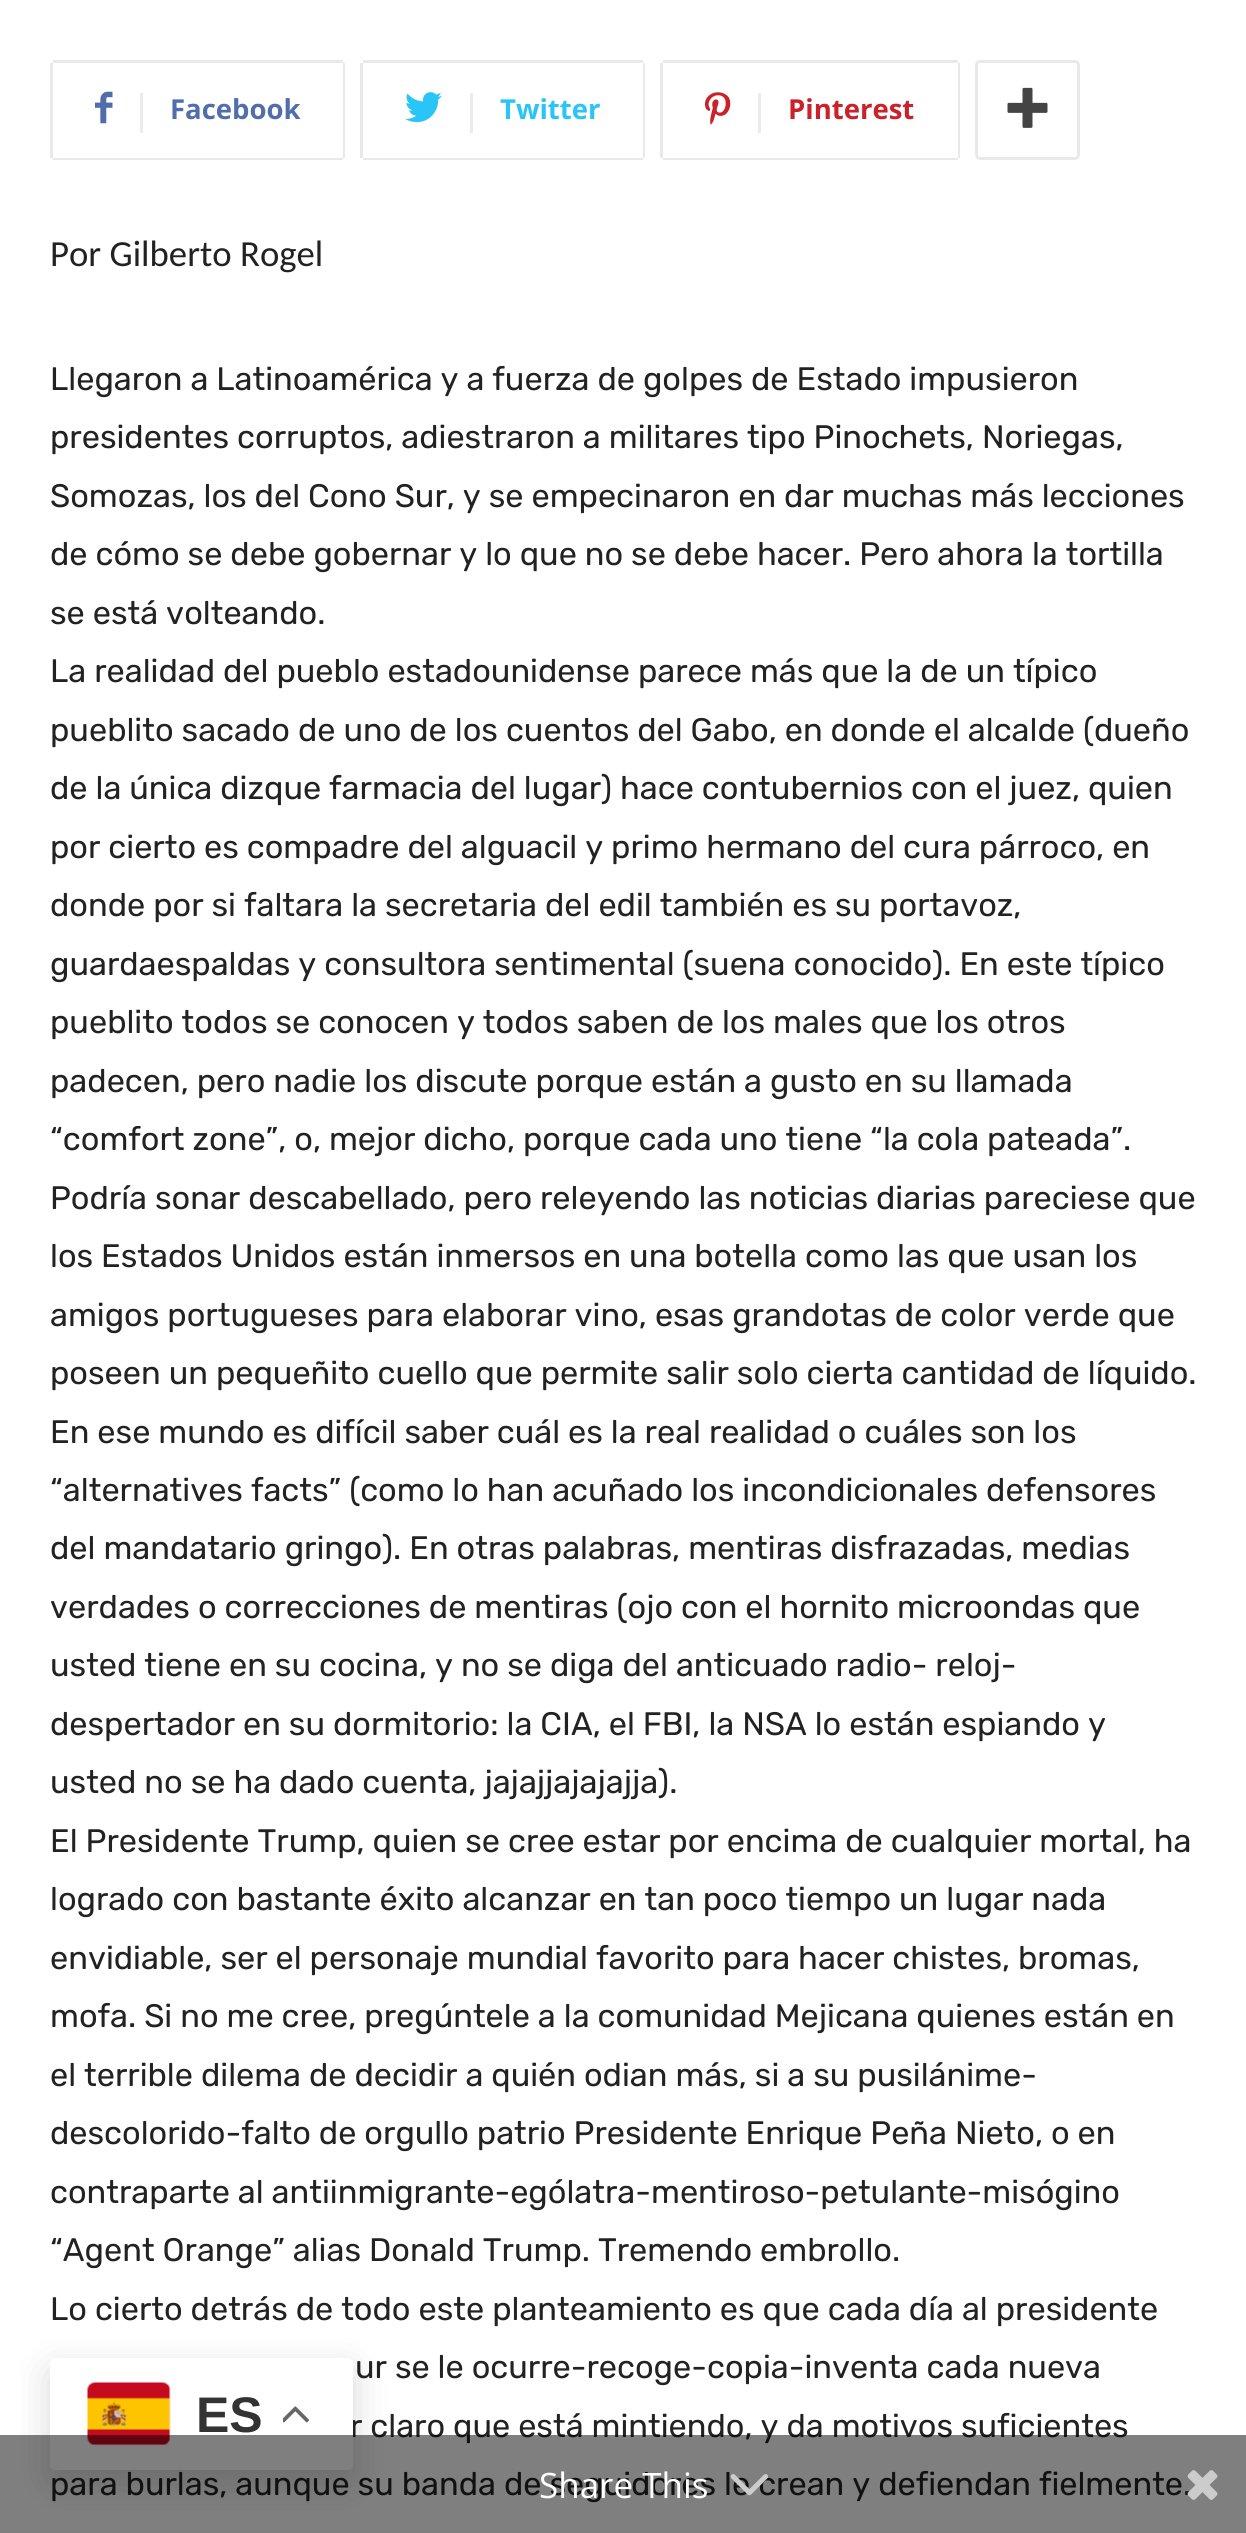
#include <cairo/cairo.h>
#include <math.h>
#include <stddef.h>


static void rounded_rect(cairo_t *cr, double x, double y, double w, double h, double r) {
  cairo_new_sub_path(cr);
  cairo_arc(cr, x + w - r, y + h - r, r, 0, M_PI / 2);
  cairo_arc(cr, x + r, y + h - r, r, M_PI / 2, M_PI);
  cairo_arc(cr, x + r, y + r, r, M_PI, 1.5 * M_PI);
  cairo_arc(cr, x + w - r, y + r, r, 1.5 * M_PI, 2 * M_PI);
  cairo_close_path(cr);
}

static void draw_shadow(cairo_t *cr, double x, double y, double w, double h, double r, double blur, double alpha) {
  cairo_push_group_with_content(cr, CAIRO_CONTENT_ALPHA);
  cairo_set_operator(cr, CAIRO_OPERATOR_SOURCE);
  for (int i = 15; i >= -15 && fmin(w, h) + blur * i / 3 > 0; i -= 2) {
    double e = blur * i / 6;
    cairo_set_source_rgba(cr, 0, 0, 0, alpha * erfc((i - 1) / 8.5) / 2);
    rounded_rect(cr, x - e, y - e, w + 2 * e, h + 2 * e, fmax(0, fmin(r + e + blur * .6, fmin(w, h) / 2 + e)));
    cairo_fill(cr);
  }
  cairo_pattern_t *soft = cairo_pop_group(cr);
  cairo_mask(cr, soft);
  cairo_pattern_destroy(soft);
}

static void draw_image(cairo_t *cr, const char *path, double x, double y, double w, double h) {
  cairo_surface_t *image = cairo_image_surface_create_from_png(path);
  cairo_save(cr);
  cairo_set_source_surface(cr, image, x, y);
  cairo_rectangle(cr, x, y, w, h);
  cairo_fill(cr);
  cairo_restore(cr);
  cairo_surface_destroy(image);
}

static void draw(cairo_t *cr) {
  cairo_set_source_rgb(cr, 1, 1, 1);
  cairo_paint(cr);
  cairo_set_source_rgb(cr, 233 / 255.0, 233 / 255.0, 233 / 255.0);
  cairo_rectangle(cr, 50, 63, 3, 95);
  cairo_fill(cr);
  draw_image(cr, "images/1.png", 95, 91, 18, 33);
  cairo_rectangle(cr, 53, 60, 290, 3);
  cairo_fill(cr);
  cairo_rectangle(cr, 343, 63, 2, 95);
  cairo_fill(cr);
  cairo_rectangle(cr, 53, 158, 290, 2);
  cairo_fill(cr);
  cairo_set_source_rgb(cr, 235 / 255.0, 235 / 255.0, 235 / 255.0);
  cairo_rectangle(cr, 140, 93, 3, 40);
  cairo_fill(cr);
  cairo_set_source_rgb(cr, 233 / 255.0, 233 / 255.0, 233 / 255.0);
  cairo_rectangle(cr, 360, 63, 3, 95);
  cairo_fill(cr);
  draw_image(cr, "images/2.png", 405, 92, 37, 31);
  cairo_rectangle(cr, 363, 60, 280, 3);
  cairo_fill(cr);
  cairo_rectangle(cr, 643, 63, 2, 95);
  cairo_fill(cr);
  cairo_rectangle(cr, 363, 158, 280, 2);
  cairo_fill(cr);
  cairo_set_source_rgb(cr, 235 / 255.0, 235 / 255.0, 235 / 255.0);
  cairo_rectangle(cr, 470, 93, 3, 40);
  cairo_fill(cr);
  cairo_set_source_rgb(cr, 233 / 255.0, 233 / 255.0, 233 / 255.0);
  cairo_rectangle(cr, 660, 63, 3, 95);
  cairo_fill(cr);
  draw_image(cr, "images/3.png", 705, 92, 26, 33);
  cairo_rectangle(cr, 663, 60, 295, 3);
  cairo_fill(cr);
  cairo_rectangle(cr, 958, 63, 2, 95);
  cairo_fill(cr);
  cairo_rectangle(cr, 663, 158, 295, 2);
  cairo_fill(cr);
  cairo_set_source_rgb(cr, 235 / 255.0, 235 / 255.0, 235 / 255.0);
  cairo_rectangle(cr, 758, 93, 3, 40);
  cairo_fill(cr);
  rounded_rect(cr, 976.5, 61.5, 102, 97, 3.5);
  cairo_set_source_rgb(cr, 233 / 255.0, 233 / 255.0, 233 / 255.0);
  cairo_set_line_width(cr, 3);
  cairo_stroke(cr);
  draw_image(cr, "images/4.png", 1007, 87, 41, 41);
  cairo_set_source_rgb(cr, 0, 0, 0);
  draw_shadow(cr, 50, 2370, 303, 113, 5, 19, 0.15);
  cairo_select_font_face(cr, "Open Sans", CAIRO_FONT_SLANT_NORMAL, CAIRO_FONT_WEIGHT_BOLD);
  cairo_set_font_size(cr, 27.5);
  cairo_set_source_rgb(cr, 81 / 255.0, 110 / 255.0, 171 / 255.0);
  cairo_move_to(cr, 170, 119);
  cairo_show_text(cr, "Facebook");
  cairo_set_source_rgb(cr, 41 / 255.0, 197 / 255.0, 246 / 255.0);
  cairo_move_to(cr, 500, 119);
  cairo_show_text(cr, "Twitter");
  cairo_set_source_rgb(cr, 202 / 255.0, 33 / 255.0, 42 / 255.0);
  cairo_move_to(cr, 788, 119);
  cairo_show_text(cr, "Pinterest");
  cairo_select_font_face(cr, "Carlito", CAIRO_FONT_SLANT_NORMAL, CAIRO_FONT_WEIGHT_NORMAL);
  cairo_set_font_size(cr, 36.75);
  cairo_set_source_rgb(cr, 34 / 255.0, 34 / 255.0, 34 / 255.0);
  cairo_move_to(cr, 50, 266);
  cairo_show_text(cr, "Por Gilberto Rogel");
  cairo_select_font_face(cr, "Rubik", CAIRO_FONT_SLANT_NORMAL, CAIRO_FONT_WEIGHT_NORMAL);
  cairo_set_font_size(cr, 32.5);
  cairo_move_to(cr, 50, 390);
  cairo_show_text(cr, "Llegaron a Latinoamérica y a fuerza de golpes de Estado impusieron");
  cairo_move_to(cr, 50, 448);
  cairo_show_text(cr, "presidentes corruptos, adiestraron a militares tipo Pinochets, Noriegas,");
  cairo_move_to(cr, 50, 507);
  cairo_show_text(cr, "Somozas, los del Cono Sur, y se empecinaron en dar muchas más lecciones");
  cairo_move_to(cr, 50, 565);
  cairo_show_text(cr, "de cómo se debe gobernar y lo que no se debe hacer. Pero ahora la tortilla");
  cairo_move_to(cr, 50, 624);
  cairo_show_text(cr, "se está volteando.");
  cairo_move_to(cr, 50, 682);
  cairo_show_text(cr, "La realidad del pueblo estadounidense parece más que la de un típico");
  cairo_move_to(cr, 50, 741);
  cairo_show_text(cr, "pueblito sacado de uno de los cuentos del Gabo, en donde el alcalde (dueño");
  cairo_move_to(cr, 50, 799);
  cairo_show_text(cr, "de la única dizque farmacia del lugar) hace contubernios con el juez, quien");
  cairo_move_to(cr, 50, 858);
  cairo_show_text(cr, "por cierto es compadre del alguacil y primo hermano del cura párroco, en");
  cairo_move_to(cr, 50, 916);
  cairo_show_text(cr, "donde por si faltara la secretaria del edil también es su portavoz,");
  cairo_move_to(cr, 50, 975);
  cairo_show_text(cr, "guardaespaldas y consultora sentimental (suena conocido). En este típico");
  cairo_move_to(cr, 50, 1033);
  cairo_show_text(cr, "pueblito todos se conocen y todos saben de los males que los otros");
  cairo_move_to(cr, 50, 1092);
  cairo_show_text(cr, "padecen, pero nadie los discute porque están a gusto en su llamada");
  cairo_move_to(cr, 50, 1150);
  cairo_show_text(cr, "“comfort zone”, o, mejor dicho, porque cada uno tiene “la cola pateada”.");
  cairo_move_to(cr, 50, 1209);
  cairo_show_text(cr, "Podría sonar descabellado, pero releyendo las noticias diarias pareciese que");
  cairo_move_to(cr, 50, 1267);
  cairo_show_text(cr, "los Estados Unidos están inmersos en una botella como las que usan los");
  cairo_move_to(cr, 50, 1326);
  cairo_show_text(cr, "amigos portugueses para elaborar vino, esas grandotas de color verde que");
  cairo_move_to(cr, 50, 1384);
  cairo_show_text(cr, "poseen un pequeñito cuello que permite salir solo cierta cantidad de líquido.");
  cairo_move_to(cr, 50, 1443);
  cairo_show_text(cr, "En ese mundo es difícil saber cuál es la real realidad o cuáles son los");
  cairo_move_to(cr, 50, 1501);
  cairo_show_text(cr, "“alternatives facts” (como lo han acuñado los incondicionales defensores");
  cairo_move_to(cr, 50, 1559);
  cairo_show_text(cr, "del mandatario gringo). En otras palabras, mentiras disfrazadas, medias");
  cairo_move_to(cr, 50, 1618);
  cairo_show_text(cr, "verdades o correcciones de mentiras (ojo con el hornito microondas que");
  cairo_move_to(cr, 50, 1676);
  cairo_show_text(cr, "usted tiene en su cocina, y no se diga del anticuado radio- reloj-");
  cairo_move_to(cr, 50, 1735);
  cairo_show_text(cr, "despertador en su dormitorio: la CIA, el FBI, la NSA lo están espiando y");
  cairo_move_to(cr, 50, 1793);
  cairo_show_text(cr, "usted no se ha dado cuenta, jajajjajajajja).");
  cairo_move_to(cr, 50, 1852);
  cairo_show_text(cr, "El Presidente Trump, quien se cree estar por encima de cualquier mortal, ha");
  cairo_move_to(cr, 50, 1910);
  cairo_show_text(cr, "logrado con bastante éxito alcanzar en tan poco tiempo un lugar nada");
  cairo_move_to(cr, 50, 1969);
  cairo_show_text(cr, "envidiable, ser el personaje mundial favorito para hacer chistes, bromas,");
  cairo_move_to(cr, 50, 2027);
  cairo_show_text(cr, "mofa. Si no me cree, pregúntele a la comunidad Mejicana quienes están en");
  cairo_move_to(cr, 50, 2086);
  cairo_show_text(cr, "el terrible dilema de decidir a quién odian más, si a su pusilánime-");
  cairo_move_to(cr, 50, 2144);
  cairo_show_text(cr, "descolorido-falto de orgullo patrio Presidente Enrique Peña Nieto, o en");
  cairo_move_to(cr, 50, 2203);
  cairo_show_text(cr, "contraparte al antiinmigrante-ególatra-mentiroso-petulante-misógino");
  cairo_move_to(cr, 50, 2261);
  cairo_show_text(cr, "“Agent Orange” alias Donald Trump. Tremendo embrollo.");
  cairo_move_to(cr, 50, 2320);
  cairo_show_text(cr, "Lo cierto detrás de todo este planteamiento es que cada día al presidente");
  cairo_move_to(cr, 355, 2378);
  cairo_show_text(cr, "ur se le ocurre-recoge-copia-inventa cada nueva");
  cairo_move_to(cr, 350, 2437);
  cairo_show_text(cr, "r claro que está mintiendo, y da motivos suficientes");
  cairo_move_to(cr, 50, 2495);
  cairo_show_text(cr, "para burlas, aunque su banda de seguidores le crean y defiendan fielmente.");
  cairo_set_source_rgb(cr, 1, 1, 1);
  rounded_rect(cr, 50, 2358, 303, 112, 5);
  cairo_fill(cr);
  draw_image(cr, "images/5.png", 87, 2382, 84, 64);
  cairo_select_font_face(cr, "Liberation Sans", CAIRO_FONT_SLANT_NORMAL, CAIRO_FONT_WEIGHT_BOLD);
  cairo_set_font_size(cr, 50);
  cairo_set_source_rgb(cr, 51 / 255.0, 51 / 255.0, 51 / 255.0);
  cairo_move_to(cr, 196, 2432);
  cairo_show_text(cr, "ES");
  draw_image(cr, "images/6.png", 283, 2406, 26, 17);
  cairo_set_source_rgba(cr, 0, 0, 0, 0.5);
  cairo_rectangle(cr, 0, 2435, 1246, 98);
  cairo_fill(cr);
  cairo_select_font_face(cr, "Open Sans", CAIRO_FONT_SLANT_NORMAL, CAIRO_FONT_WEIGHT_NORMAL);
  cairo_set_font_size(cr, 35);
  cairo_set_source_rgb(cr, 1, 1, 1);
  cairo_move_to(cr, 539, 2498);
  cairo_show_text(cr, "Share This");
  draw_image(cr, "images/7.png", 730, 2474, 39, 22);
  draw_image(cr, "images/8.png", 1187, 2470, 31, 30);
}

int main(void) {
  cairo_surface_t *surface = cairo_image_surface_create(CAIRO_FORMAT_RGB24, 1246, 2533);
  cairo_t *cr = cairo_create(surface);
  cairo_font_options_t *options = cairo_font_options_create();
  cairo_font_options_set_hint_metrics(options, CAIRO_HINT_METRICS_OFF);
  cairo_font_options_set_hint_style(options, CAIRO_HINT_STYLE_NONE);
  cairo_set_font_options(cr, options);
  cairo_set_miter_limit(cr, 4);
  draw(cr);
  cairo_surface_write_to_png(surface, "out.png");
  cairo_font_options_destroy(options);
  cairo_destroy(cr);
  cairo_surface_destroy(surface);
  return 0;
}
